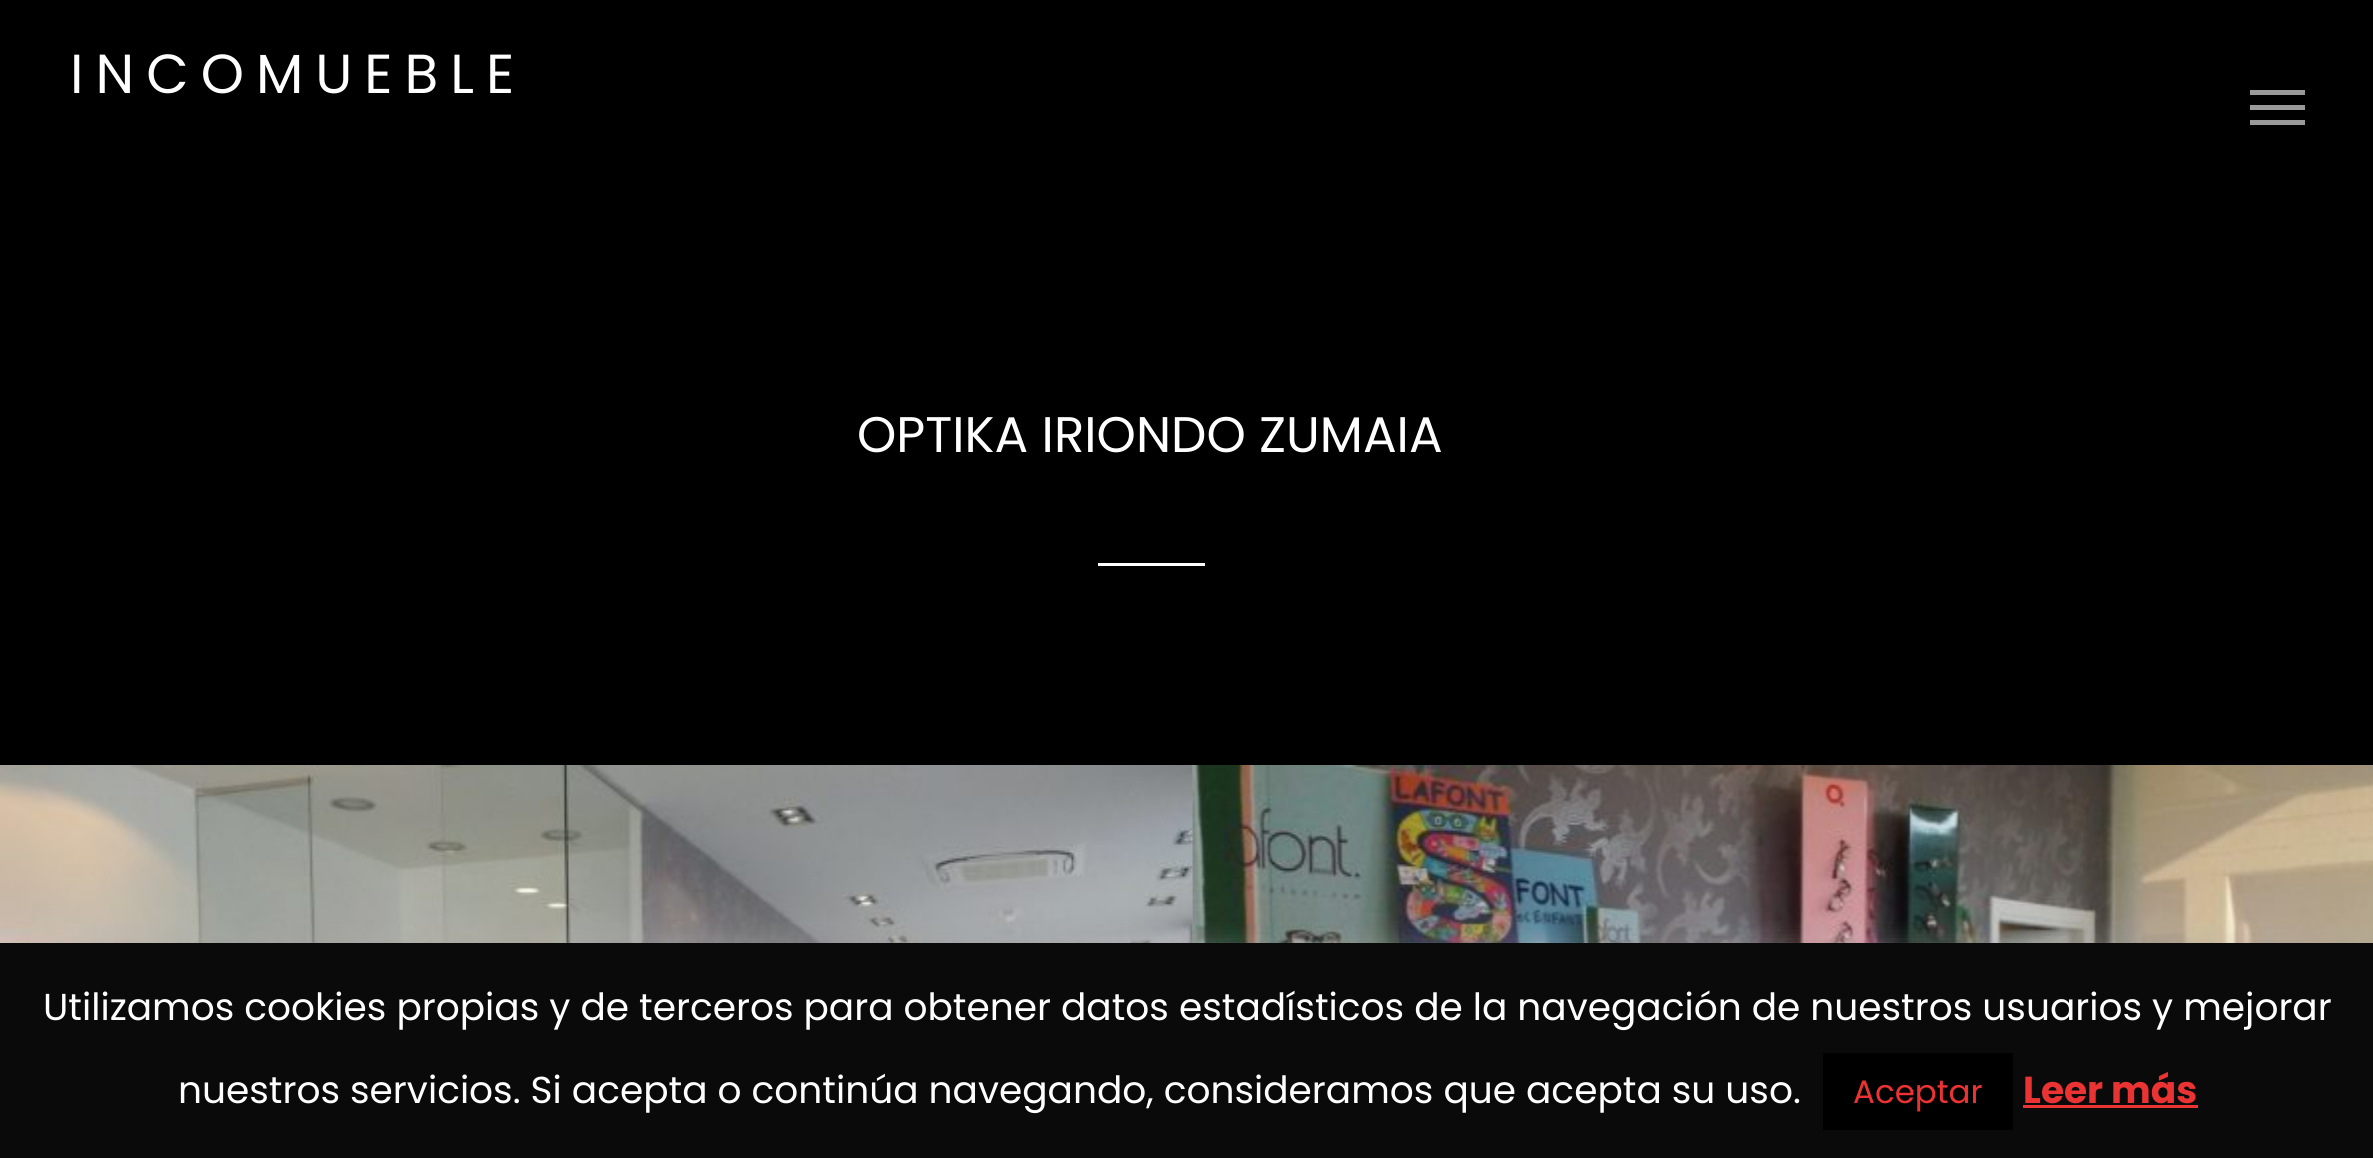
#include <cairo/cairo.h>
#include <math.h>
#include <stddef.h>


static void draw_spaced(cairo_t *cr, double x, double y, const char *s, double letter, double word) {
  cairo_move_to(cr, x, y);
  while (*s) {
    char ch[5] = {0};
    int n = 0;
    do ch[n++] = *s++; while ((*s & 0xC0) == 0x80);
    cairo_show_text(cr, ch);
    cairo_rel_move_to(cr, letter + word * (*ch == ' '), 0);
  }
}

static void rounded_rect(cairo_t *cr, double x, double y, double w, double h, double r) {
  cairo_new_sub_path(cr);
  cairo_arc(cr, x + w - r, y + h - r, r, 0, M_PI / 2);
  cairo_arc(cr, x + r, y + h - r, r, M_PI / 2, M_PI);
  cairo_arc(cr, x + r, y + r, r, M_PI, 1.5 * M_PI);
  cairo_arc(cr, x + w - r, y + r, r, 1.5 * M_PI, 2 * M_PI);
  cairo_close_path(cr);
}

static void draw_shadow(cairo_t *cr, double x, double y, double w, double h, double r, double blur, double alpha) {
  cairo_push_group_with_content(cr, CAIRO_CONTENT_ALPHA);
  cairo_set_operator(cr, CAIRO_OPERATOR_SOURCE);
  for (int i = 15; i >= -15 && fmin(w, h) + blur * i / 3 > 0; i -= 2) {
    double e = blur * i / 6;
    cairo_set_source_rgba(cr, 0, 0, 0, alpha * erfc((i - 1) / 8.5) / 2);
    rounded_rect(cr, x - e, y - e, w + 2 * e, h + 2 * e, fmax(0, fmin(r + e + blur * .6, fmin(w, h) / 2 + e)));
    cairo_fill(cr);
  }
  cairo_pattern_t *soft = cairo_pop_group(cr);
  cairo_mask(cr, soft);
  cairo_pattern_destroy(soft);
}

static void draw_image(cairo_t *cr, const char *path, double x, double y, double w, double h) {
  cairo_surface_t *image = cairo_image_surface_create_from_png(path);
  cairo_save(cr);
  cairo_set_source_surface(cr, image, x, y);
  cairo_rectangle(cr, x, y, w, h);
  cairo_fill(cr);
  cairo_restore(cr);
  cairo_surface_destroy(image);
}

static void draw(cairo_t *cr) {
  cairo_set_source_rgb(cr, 0, 0, 0);
  cairo_paint(cr);
  cairo_set_source_rgb(cr, 153 / 255.0, 153 / 255.0, 153 / 255.0);
  cairo_rectangle(cr, 2250, 90, 55, 5);
  cairo_fill(cr);
  cairo_rectangle(cr, 2250, 120, 55, 5);
  cairo_fill(cr);
  cairo_rectangle(cr, 2250, 105, 55, 5);
  cairo_fill(cr);
  cairo_set_source_rgb(cr, 1, 1, 1);
  cairo_rectangle(cr, 1098, 563, 107, 3);
  cairo_fill(cr);
  draw_image(cr, "images/1.png", 0, 765, 1193, 178);
  draw_image(cr, "images/2.png", 1192, 765, 1, 178);
  draw_image(cr, "images/3.png", 1192, 765, 1181, 178);
  cairo_set_source_rgb(cr, 172 / 255.0, 171 / 255.0, 171 / 255.0);
  draw_shadow(cr, 0, 940, 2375, 218, 0, 12.5, 0.3);
  cairo_set_source_rgb(cr, 10 / 255.0, 10 / 255.0, 10 / 255.0);
  cairo_rectangle(cr, 0, 943, 2373, 215);
  cairo_fill(cr);
  cairo_set_source_rgb(cr, 0, 0, 0);
  cairo_rectangle(cr, 1823, 1053, 190, 77);
  cairo_fill(cr);
  cairo_set_source_rgb(cr, 235 / 255.0, 51 / 255.0, 51 / 255.0);
  cairo_rectangle(cr, 2023, 1105, 175, 3);
  cairo_fill(cr);
  cairo_select_font_face(cr, "Poppins", CAIRO_FONT_SLANT_NORMAL, CAIRO_FONT_WEIGHT_NORMAL);
  cairo_set_font_size(cr, 55);
  cairo_set_source_rgb(cr, 1, 1, 1);
  draw_spaced(cr, 70, 93, "INCOMUEBLE", 12, 0);
  cairo_set_font_size(cr, 50);
  cairo_move_to(cr, 857, 452);
  cairo_show_text(cr, "OPTIKA IRIONDO ZUMAIA");
  cairo_set_font_size(cr, 37.5);
  cairo_move_to(cr, 43, 1020);
  cairo_show_text(cr, "Utilizamos cookies propias y de terceros para obtener datos estadísticos de la navegación de nuestros usuarios y mejorar");
  cairo_move_to(cr, 178, 1103);
  cairo_show_text(cr, "nuestros servicios. Si acepta o continúa navegando, consideramos que acepta su uso.");
  cairo_set_font_size(cr, 32.5);
  cairo_set_source_rgb(cr, 235 / 255.0, 51 / 255.0, 51 / 255.0);
  cairo_move_to(cr, 1853, 1103);
  cairo_show_text(cr, "Aceptar");
  cairo_select_font_face(cr, "Poppins", CAIRO_FONT_SLANT_NORMAL, CAIRO_FONT_WEIGHT_BOLD);
  cairo_set_font_size(cr, 37.5);
  cairo_move_to(cr, 2023, 1103);
  cairo_show_text(cr, "Leer más");
}

int main(void) {
  cairo_surface_t *surface = cairo_image_surface_create(CAIRO_FORMAT_RGB24, 2373, 1158);
  cairo_t *cr = cairo_create(surface);
  cairo_font_options_t *options = cairo_font_options_create();
  cairo_font_options_set_hint_metrics(options, CAIRO_HINT_METRICS_OFF);
  cairo_font_options_set_hint_style(options, CAIRO_HINT_STYLE_NONE);
  cairo_set_font_options(cr, options);
  cairo_set_miter_limit(cr, 4);
  draw(cr);
  cairo_surface_write_to_png(surface, "out.png");
  cairo_font_options_destroy(options);
  cairo_destroy(cr);
  cairo_surface_destroy(surface);
  return 0;
}
